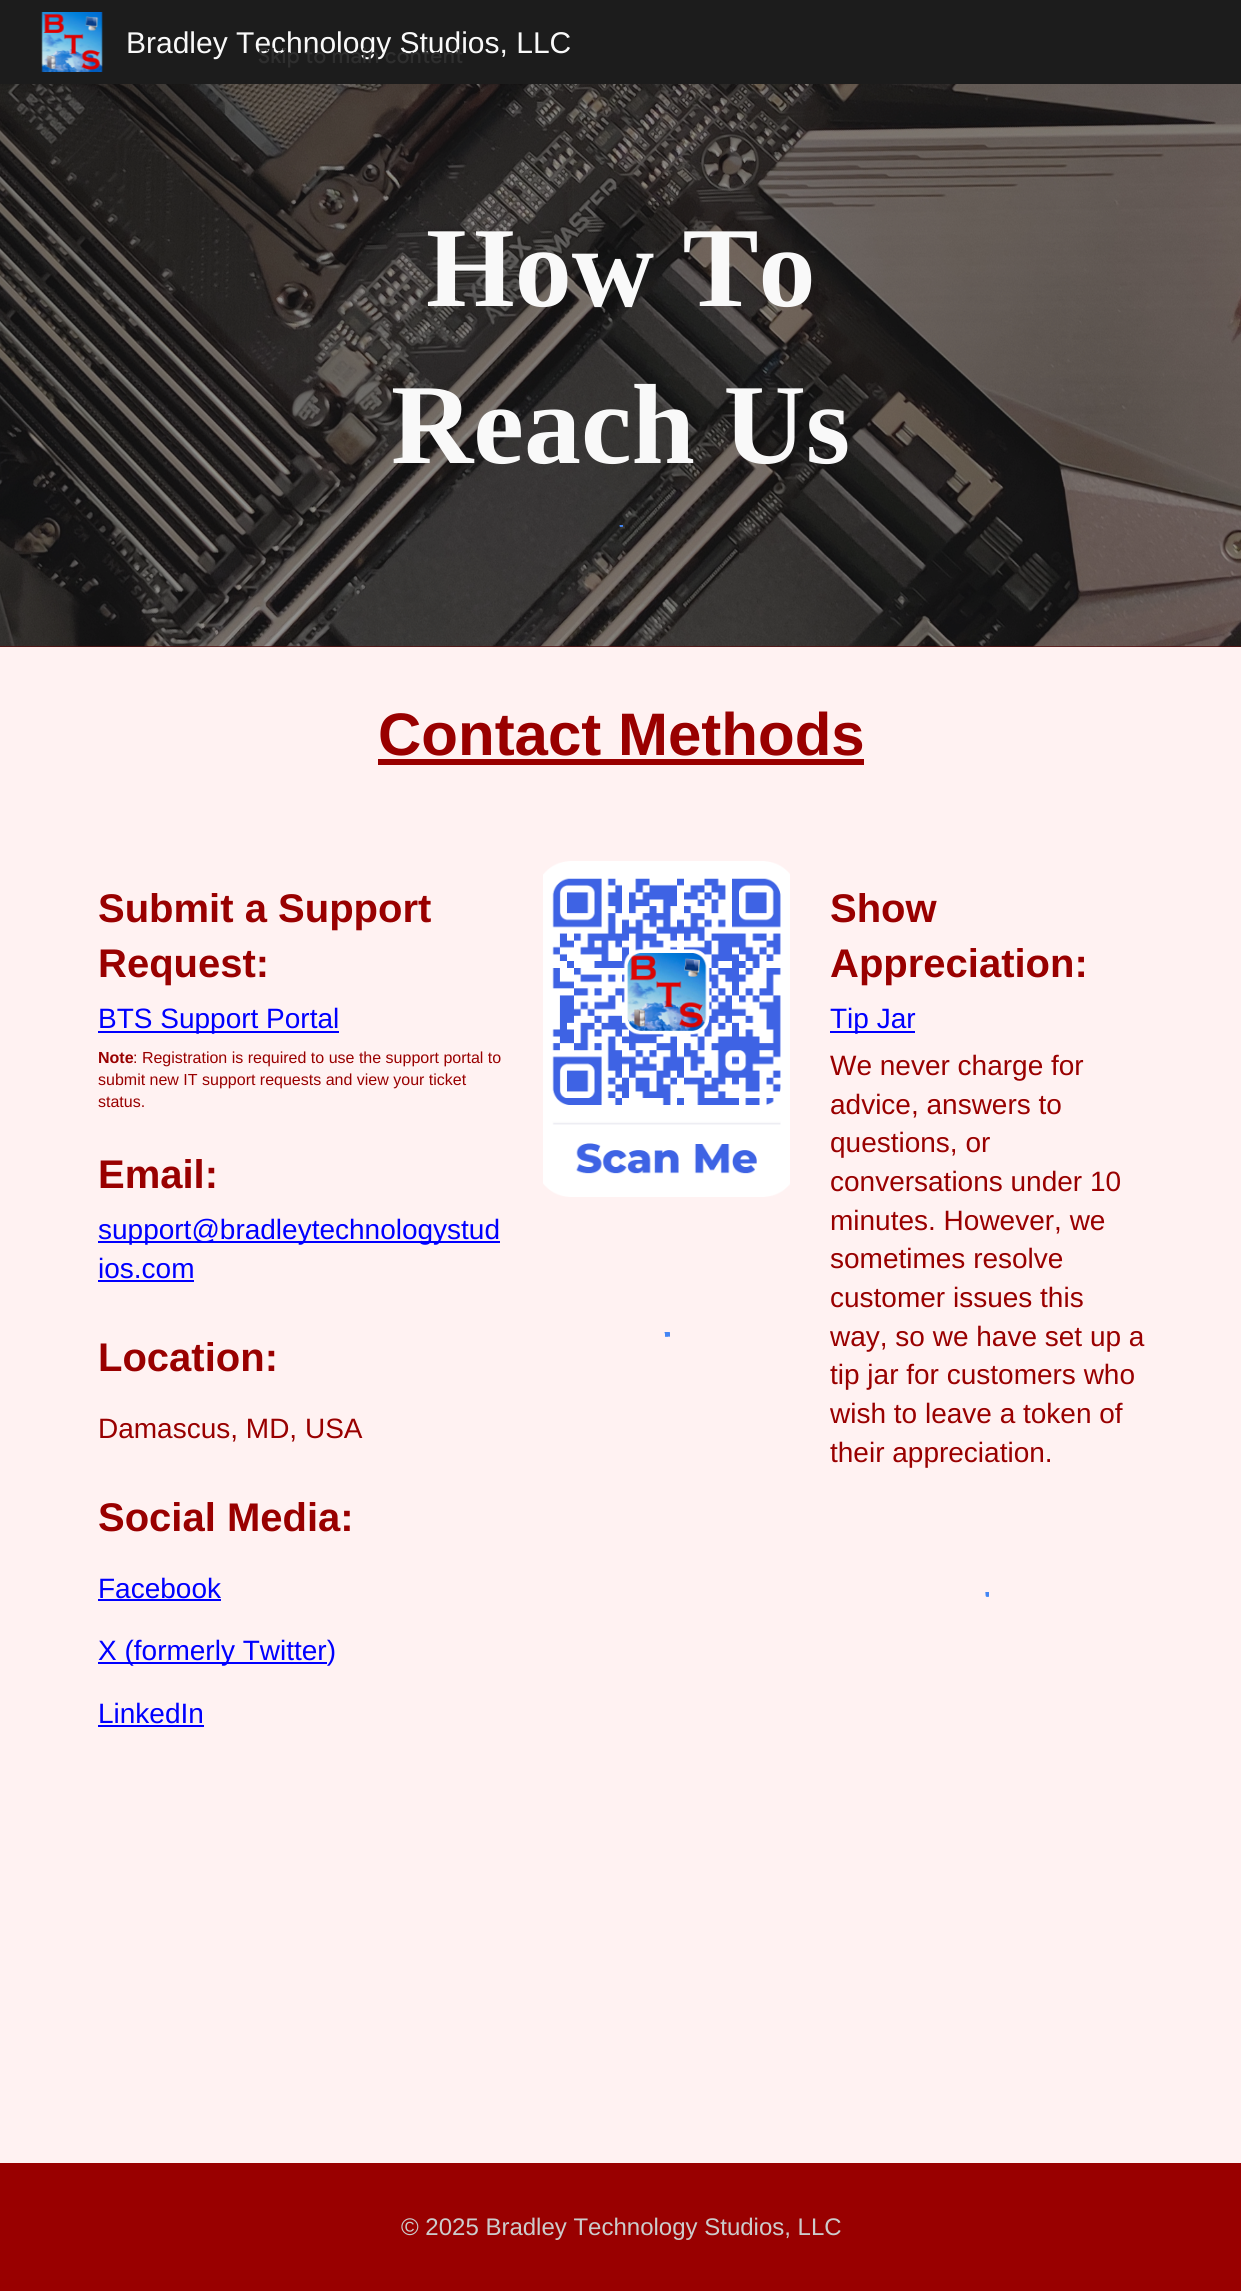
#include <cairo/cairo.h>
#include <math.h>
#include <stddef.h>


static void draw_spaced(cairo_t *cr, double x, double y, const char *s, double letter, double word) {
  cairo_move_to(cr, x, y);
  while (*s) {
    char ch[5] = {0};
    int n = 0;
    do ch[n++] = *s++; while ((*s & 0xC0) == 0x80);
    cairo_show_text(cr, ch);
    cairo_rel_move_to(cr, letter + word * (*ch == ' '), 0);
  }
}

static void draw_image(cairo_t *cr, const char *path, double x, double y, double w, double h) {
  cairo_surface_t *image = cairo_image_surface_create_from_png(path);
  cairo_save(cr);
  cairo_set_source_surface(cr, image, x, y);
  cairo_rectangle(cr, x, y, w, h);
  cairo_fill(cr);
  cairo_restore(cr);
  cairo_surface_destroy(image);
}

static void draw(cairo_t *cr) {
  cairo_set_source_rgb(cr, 1, 242 / 255.0, 242 / 255.0);
  cairo_paint(cr);
  cairo_set_source_rgb(cr, 28 / 255.0, 28 / 255.0, 28 / 255.0);
  cairo_rectangle(cr, 0, 0, 1241, 84);
  cairo_fill(cr);
  draw_image(cr, "images/1.png", 41, 12, 62, 60);
  cairo_set_source_rgb(cr, 92 / 255.0, 16 / 255.0, 16 / 255.0);
  cairo_rectangle(cr, 0, 646, 1241, 1);
  cairo_fill(cr);
  draw_image(cr, "images/2.png", 0, 84, 1241, 563);
  cairo_save(cr);
  cairo_rectangle(cr, 600, 525, 21, 38);
  cairo_clip(cr);
  cairo_new_path(cr);
  cairo_move_to(cr, 619.5, 524.5);
  cairo_curve_to(cr, 637.5, 523, 647, 546.5, 632.5, 558);
  cairo_curve_to(cr, 630, 560, 626.5, 561.5, 622.5, 562);
  cairo_set_source_rgba(cr, 66 / 255.0, 133 / 255.0, 244 / 255.0, 0.99);
  cairo_set_line_width(cr, 4.5);
  cairo_stroke(cr);
  cairo_restore(cr);
  cairo_save(cr);
  cairo_rectangle(cr, 620, 525, 3, 38);
  cairo_clip(cr);
  cairo_new_path(cr);
  cairo_move_to(cr, 607.5, 556.5);
  cairo_curve_to(cr, 604, 553, 602, 548, 602, 543);
  cairo_curve_to(cr, 602, 520.5, 635, 517.5, 639.5, 539.5);
  cairo_curve_to(cr, 640.5, 545.5, 638.5, 552, 634.5, 556.5);
  cairo_set_source_rgba(cr, 66 / 255.0, 133 / 255.0, 244 / 255.0, 0.99);
  cairo_set_line_width(cr, 4.5);
  cairo_stroke(cr);
  cairo_restore(cr);
  cairo_save(cr);
  cairo_rectangle(cr, 621, 525, 21, 38);
  cairo_clip(cr);
  cairo_new_path(cr);
  cairo_move_to(cr, 619.5, 562);
  cairo_curve_to(cr, 615.5, 561.5, 612, 560, 609.5, 558);
  cairo_curve_to(cr, 595, 546.5, 604.5, 523, 622.5, 524.5);
  cairo_set_source_rgba(cr, 66 / 255.0, 133 / 255.0, 244 / 255.0, 0.99);
  cairo_set_line_width(cr, 4.5);
  cairo_stroke(cr);
  cairo_restore(cr);
  cairo_set_source_rgb(cr, 153 / 255.0, 0, 0);
  cairo_rectangle(cr, 378, 759, 486, 6);
  cairo_fill(cr);
  cairo_set_source_rgb(cr, 0, 0, 1);
  cairo_rectangle(cr, 98, 1031, 241, 2);
  cairo_fill(cr);
  cairo_rectangle(cr, 98, 1241, 402, 2);
  cairo_fill(cr);
  cairo_rectangle(cr, 98, 1280, 96, 2);
  cairo_fill(cr);
  cairo_rectangle(cr, 98, 1599, 123, 2);
  cairo_fill(cr);
  cairo_rectangle(cr, 98, 1662, 229, 2);
  cairo_fill(cr);
  cairo_rectangle(cr, 98, 1725, 106, 2);
  cairo_fill(cr);
  draw_image(cr, "images/3.png", 543, 861, 247, 336);
  cairo_save(cr);
  cairo_rectangle(cr, 647, 1332, 21, 42);
  cairo_clip(cr);
  cairo_new_path(cr);
  cairo_move_to(cr, 665, 1334);
  cairo_curve_to(cr, 683.5, 1332.5, 693, 1356, 678.5, 1367.5);
  cairo_curve_to(cr, 675.5, 1369.5, 672, 1371, 668.5, 1371.5);
  cairo_set_source_rgb(cr, 68 / 255.0, 134 / 255.0, 244 / 255.0);
  cairo_set_line_width(cr, 4.5);
  cairo_stroke(cr);
  cairo_restore(cr);
  cairo_save(cr);
  cairo_rectangle(cr, 665, 1332, 5, 42);
  cairo_clip(cr);
  cairo_new_path(cr);
  cairo_move_to(cr, 654, 1366.5);
  cairo_curve_to(cr, 649.5, 1362, 648, 1355.5, 649, 1349.5);
  cairo_curve_to(cr, 650, 1344.5, 653, 1340, 657, 1337.5);
  cairo_curve_to(cr, 675, 1325, 694.5, 1350.5, 679.5, 1366.5);
  cairo_set_source_rgb(cr, 68 / 255.0, 134 / 255.0, 244 / 255.0);
  cairo_set_line_width(cr, 4.5);
  cairo_stroke(cr);
  cairo_restore(cr);
  cairo_save(cr);
  cairo_rectangle(cr, 668, 1332, 21, 42);
  cairo_clip(cr);
  cairo_new_path(cr);
  cairo_move_to(cr, 665, 1371.5);
  cairo_curve_to(cr, 661.5, 1371, 658, 1369.5, 655, 1367.5);
  cairo_curve_to(cr, 640.5, 1356, 650, 1332.5, 668.5, 1334);
  cairo_set_source_rgb(cr, 68 / 255.0, 134 / 255.0, 244 / 255.0);
  cairo_set_line_width(cr, 4.5);
  cairo_stroke(cr);
  cairo_restore(cr);
  cairo_save(cr);
  cairo_rectangle(cr, 647, 1332, 21, 42);
  cairo_clip(cr);
  cairo_new_path(cr);
  cairo_move_to(cr, 665, 1334);
  cairo_curve_to(cr, 683.5, 1332.5, 693, 1356, 678.5, 1367.5);
  cairo_curve_to(cr, 675.5, 1369.5, 672, 1371, 668.5, 1371.5);
  cairo_set_source_rgb(cr, 68 / 255.0, 134 / 255.0, 244 / 255.0);
  cairo_set_line_width(cr, 4.5);
  cairo_stroke(cr);
  cairo_restore(cr);
  cairo_save(cr);
  cairo_rectangle(cr, 668, 1332, 21, 42);
  cairo_clip(cr);
  cairo_new_path(cr);
  cairo_move_to(cr, 665, 1371.5);
  cairo_curve_to(cr, 661.5, 1371, 658, 1369.5, 655, 1367.5);
  cairo_curve_to(cr, 640.5, 1356, 650, 1332.5, 668.5, 1334);
  cairo_set_source_rgb(cr, 68 / 255.0, 134 / 255.0, 244 / 255.0);
  cairo_set_line_width(cr, 4.5);
  cairo_stroke(cr);
  cairo_restore(cr);
  cairo_save(cr);
  cairo_rectangle(cr, 647, 1332, 21, 42);
  cairo_clip(cr);
  cairo_new_path(cr);
  cairo_move_to(cr, 665, 1334);
  cairo_curve_to(cr, 683.5, 1332.5, 693, 1356, 678.5, 1367.5);
  cairo_curve_to(cr, 675.5, 1369.5, 672, 1371, 668.5, 1371.5);
  cairo_set_source_rgb(cr, 68 / 255.0, 134 / 255.0, 244 / 255.0);
  cairo_set_line_width(cr, 4.5);
  cairo_stroke(cr);
  cairo_restore(cr);
  cairo_save(cr);
  cairo_rectangle(cr, 668, 1332, 21, 42);
  cairo_clip(cr);
  cairo_new_path(cr);
  cairo_move_to(cr, 665, 1371.5);
  cairo_curve_to(cr, 661.5, 1371, 658, 1369.5, 655, 1367.5);
  cairo_curve_to(cr, 640.5, 1356, 650, 1332.5, 668.5, 1334);
  cairo_set_source_rgb(cr, 68 / 255.0, 134 / 255.0, 244 / 255.0);
  cairo_set_line_width(cr, 4.5);
  cairo_stroke(cr);
  cairo_restore(cr);
  cairo_save(cr);
  cairo_rectangle(cr, 647, 1332, 21, 42);
  cairo_clip(cr);
  cairo_new_path(cr);
  cairo_move_to(cr, 665, 1334);
  cairo_curve_to(cr, 683.5, 1332.5, 693, 1356, 678.5, 1367.5);
  cairo_curve_to(cr, 675.5, 1369.5, 672, 1371, 668.5, 1371.5);
  cairo_set_source_rgb(cr, 68 / 255.0, 134 / 255.0, 244 / 255.0);
  cairo_set_line_width(cr, 4.5);
  cairo_stroke(cr);
  cairo_restore(cr);
  cairo_save(cr);
  cairo_rectangle(cr, 668, 1332, 21, 42);
  cairo_clip(cr);
  cairo_new_path(cr);
  cairo_move_to(cr, 665, 1371.5);
  cairo_curve_to(cr, 661.5, 1371, 658, 1369.5, 655, 1367.5);
  cairo_curve_to(cr, 640.5, 1356, 650, 1332.5, 668.5, 1334);
  cairo_set_source_rgb(cr, 68 / 255.0, 134 / 255.0, 244 / 255.0);
  cairo_set_line_width(cr, 4.5);
  cairo_stroke(cr);
  cairo_restore(cr);
  cairo_rectangle(cr, 830, 1031, 85, 2);
  cairo_fill(cr);
  cairo_save(cr);
  cairo_rectangle(cr, 966, 1592, 21, 42);
  cairo_clip(cr);
  cairo_new_path(cr);
  cairo_move_to(cr, 985.5, 1594);
  cairo_curve_to(cr, 1003.5, 1592.5, 1013, 1616, 998.5, 1627.5);
  cairo_curve_to(cr, 996, 1629.5, 992.5, 1631, 988.5, 1631.5);
  cairo_set_source_rgb(cr, 68 / 255.0, 134 / 255.0, 244 / 255.0);
  cairo_set_line_width(cr, 4.5);
  cairo_stroke(cr);
  cairo_restore(cr);
  cairo_save(cr);
  cairo_rectangle(cr, 986, 1592, 3, 42);
  cairo_clip(cr);
  cairo_new_path(cr);
  cairo_move_to(cr, 973.5, 1626);
  cairo_curve_to(cr, 970, 1622.5, 968, 1617.5, 968, 1612.5);
  cairo_curve_to(cr, 968, 1590, 1001, 1587, 1005.5, 1609);
  cairo_curve_to(cr, 1006.5, 1615, 1004.5, 1621.5, 1000.5, 1626);
  cairo_set_source_rgb(cr, 68 / 255.0, 134 / 255.0, 244 / 255.0);
  cairo_set_line_width(cr, 4.5);
  cairo_stroke(cr);
  cairo_restore(cr);
  cairo_save(cr);
  cairo_rectangle(cr, 987, 1592, 21, 42);
  cairo_clip(cr);
  cairo_new_path(cr);
  cairo_move_to(cr, 985.5, 1631.5);
  cairo_curve_to(cr, 981.5, 1631, 978, 1629.5, 975.5, 1627.5);
  cairo_curve_to(cr, 961, 1616, 970.5, 1592.5, 988.5, 1594);
  cairo_set_source_rgb(cr, 68 / 255.0, 134 / 255.0, 244 / 255.0);
  cairo_set_line_width(cr, 4.5);
  cairo_stroke(cr);
  cairo_restore(cr);
  cairo_save(cr);
  cairo_rectangle(cr, 986, 1592, 3, 42);
  cairo_clip(cr);
  cairo_new_path(cr);
  cairo_move_to(cr, 973.5, 1626);
  cairo_curve_to(cr, 970, 1622.5, 968, 1617.5, 968, 1612.5);
  cairo_curve_to(cr, 968, 1590, 1001, 1587, 1005.5, 1609);
  cairo_curve_to(cr, 1006.5, 1615, 1004.5, 1621.5, 1000.5, 1626);
  cairo_set_source_rgb(cr, 68 / 255.0, 134 / 255.0, 244 / 255.0);
  cairo_set_line_width(cr, 4.5);
  cairo_stroke(cr);
  cairo_restore(cr);
  cairo_save(cr);
  cairo_rectangle(cr, 987, 1592, 21, 42);
  cairo_clip(cr);
  cairo_new_path(cr);
  cairo_move_to(cr, 985.5, 1631.5);
  cairo_curve_to(cr, 981.5, 1631, 978, 1629.5, 975.5, 1627.5);
  cairo_curve_to(cr, 961, 1616, 970.5, 1592.5, 988.5, 1594);
  cairo_set_source_rgb(cr, 68 / 255.0, 134 / 255.0, 244 / 255.0);
  cairo_set_line_width(cr, 4.5);
  cairo_stroke(cr);
  cairo_restore(cr);
  cairo_save(cr);
  cairo_rectangle(cr, 986, 1592, 3, 42);
  cairo_clip(cr);
  cairo_new_path(cr);
  cairo_move_to(cr, 973.5, 1626);
  cairo_curve_to(cr, 970, 1622.5, 968, 1617.5, 968, 1612.5);
  cairo_curve_to(cr, 968, 1590, 1001, 1587, 1005.5, 1609);
  cairo_curve_to(cr, 1006.5, 1615, 1004.5, 1621.5, 1000.5, 1626);
  cairo_set_source_rgb(cr, 68 / 255.0, 134 / 255.0, 244 / 255.0);
  cairo_set_line_width(cr, 4.5);
  cairo_stroke(cr);
  cairo_restore(cr);
  cairo_save(cr);
  cairo_rectangle(cr, 987, 1592, 21, 42);
  cairo_clip(cr);
  cairo_new_path(cr);
  cairo_move_to(cr, 985.5, 1631.5);
  cairo_curve_to(cr, 981.5, 1631, 978, 1629.5, 975.5, 1627.5);
  cairo_curve_to(cr, 961, 1616, 970.5, 1592.5, 988.5, 1594);
  cairo_set_source_rgb(cr, 68 / 255.0, 134 / 255.0, 244 / 255.0);
  cairo_set_line_width(cr, 4.5);
  cairo_stroke(cr);
  cairo_restore(cr);
  cairo_save(cr);
  cairo_rectangle(cr, 986, 1592, 3, 42);
  cairo_clip(cr);
  cairo_new_path(cr);
  cairo_move_to(cr, 973.5, 1626);
  cairo_curve_to(cr, 970, 1622.5, 968, 1617.5, 968, 1612.5);
  cairo_curve_to(cr, 968, 1590, 1001, 1587, 1005.5, 1609);
  cairo_curve_to(cr, 1006.5, 1615, 1004.5, 1621.5, 1000.5, 1626);
  cairo_set_source_rgb(cr, 68 / 255.0, 134 / 255.0, 244 / 255.0);
  cairo_set_line_width(cr, 4.5);
  cairo_stroke(cr);
  cairo_restore(cr);
  cairo_save(cr);
  cairo_rectangle(cr, 987, 1592, 21, 42);
  cairo_clip(cr);
  cairo_new_path(cr);
  cairo_move_to(cr, 985.5, 1631.5);
  cairo_curve_to(cr, 981.5, 1631, 978, 1629.5, 975.5, 1627.5);
  cairo_curve_to(cr, 961, 1616, 970.5, 1592.5, 988.5, 1594);
  cairo_set_source_rgb(cr, 68 / 255.0, 134 / 255.0, 244 / 255.0);
  cairo_set_line_width(cr, 4.5);
  cairo_stroke(cr);
  cairo_restore(cr);
  cairo_set_source_rgb(cr, 153 / 255.0, 0, 0);
  cairo_rectangle(cr, 0, 2163, 1241, 128);
  cairo_fill(cr);
  cairo_select_font_face(cr, "Liberation Sans", CAIRO_FONT_SLANT_NORMAL, CAIRO_FONT_WEIGHT_NORMAL);
  cairo_set_font_size(cr, 30);
  cairo_set_source_rgb(cr, 249 / 255.0, 249 / 255.0, 249 / 255.0);
  cairo_move_to(cr, 126, 53);
  cairo_show_text(cr, "Bradley Technology Studios, LLC");
  cairo_select_font_face(cr, "Liberation Serif", CAIRO_FONT_SLANT_NORMAL, CAIRO_FONT_WEIGHT_BOLD);
  cairo_set_font_size(cr, 114);
  cairo_move_to(cr, 426, 306);
  cairo_show_text(cr, "How To");
  cairo_move_to(cr, 391, 463);
  cairo_show_text(cr, "Reach Us");
  cairo_select_font_face(cr, "Liberation Sans", CAIRO_FONT_SLANT_NORMAL, CAIRO_FONT_WEIGHT_BOLD);
  cairo_set_font_size(cr, 60);
  cairo_set_source_rgb(cr, 153 / 255.0, 0, 0);
  cairo_move_to(cr, 378, 755);
  cairo_show_text(cr, "Contact Methods");
  cairo_set_font_size(cr, 40);
  cairo_move_to(cr, 98, 922);
  cairo_show_text(cr, "Submit a Support");
  cairo_move_to(cr, 98, 977);
  cairo_show_text(cr, "Request:");
  cairo_select_font_face(cr, "Liberation Sans", CAIRO_FONT_SLANT_NORMAL, CAIRO_FONT_WEIGHT_NORMAL);
  cairo_set_font_size(cr, 28);
  cairo_set_source_rgb(cr, 0, 0, 1);
  cairo_move_to(cr, 98, 1028);
  cairo_show_text(cr, "BTS Support Portal");
  cairo_select_font_face(cr, "Liberation Sans", CAIRO_FONT_SLANT_NORMAL, CAIRO_FONT_WEIGHT_BOLD);
  cairo_set_font_size(cr, 16);
  cairo_set_source_rgb(cr, 153 / 255.0, 0, 0);
  cairo_move_to(cr, 98, 1063);
  cairo_show_text(cr, "Note");
  cairo_select_font_face(cr, "Liberation Sans", CAIRO_FONT_SLANT_NORMAL, CAIRO_FONT_WEIGHT_NORMAL);
  cairo_move_to(cr, 133, 1063);
  cairo_show_text(cr, ": Registration is required to use the support portal to");
  cairo_move_to(cr, 98, 1085);
  cairo_show_text(cr, "submit new IT support requests and view your ticket");
  cairo_move_to(cr, 98, 1107);
  cairo_show_text(cr, "status.");
  cairo_select_font_face(cr, "Liberation Sans", CAIRO_FONT_SLANT_NORMAL, CAIRO_FONT_WEIGHT_BOLD);
  cairo_set_font_size(cr, 40);
  cairo_move_to(cr, 98, 1188);
  cairo_show_text(cr, "Email:");
  cairo_select_font_face(cr, "Liberation Sans", CAIRO_FONT_SLANT_NORMAL, CAIRO_FONT_WEIGHT_NORMAL);
  cairo_set_font_size(cr, 28);
  cairo_set_source_rgb(cr, 0, 0, 1);
  cairo_move_to(cr, 98, 1239);
  cairo_show_text(cr, "support@bradleytechnologystud");
  cairo_move_to(cr, 98, 1278);
  cairo_show_text(cr, "ios.com");
  cairo_select_font_face(cr, "Liberation Sans", CAIRO_FONT_SLANT_NORMAL, CAIRO_FONT_WEIGHT_BOLD);
  cairo_set_font_size(cr, 40);
  cairo_set_source_rgb(cr, 153 / 255.0, 0, 0);
  cairo_move_to(cr, 98, 1371);
  cairo_show_text(cr, "Location:");
  cairo_select_font_face(cr, "Liberation Sans", CAIRO_FONT_SLANT_NORMAL, CAIRO_FONT_WEIGHT_NORMAL);
  cairo_set_font_size(cr, 28);
  cairo_move_to(cr, 98, 1438);
  cairo_show_text(cr, "Damascus, MD, USA");
  cairo_select_font_face(cr, "Liberation Sans", CAIRO_FONT_SLANT_NORMAL, CAIRO_FONT_WEIGHT_BOLD);
  cairo_set_font_size(cr, 40);
  cairo_move_to(cr, 98, 1531);
  cairo_show_text(cr, "Social Media:");
  cairo_select_font_face(cr, "Liberation Sans", CAIRO_FONT_SLANT_NORMAL, CAIRO_FONT_WEIGHT_NORMAL);
  cairo_set_font_size(cr, 28);
  cairo_set_source_rgb(cr, 0, 0, 1);
  cairo_move_to(cr, 98, 1598);
  cairo_show_text(cr, "Facebook");
  cairo_move_to(cr, 98, 1660);
  cairo_show_text(cr, "X (formerly Twitter)");
  cairo_move_to(cr, 98, 1723);
  cairo_show_text(cr, "LinkedIn");
  cairo_select_font_face(cr, "Liberation Sans", CAIRO_FONT_SLANT_NORMAL, CAIRO_FONT_WEIGHT_BOLD);
  cairo_set_font_size(cr, 40);
  cairo_set_source_rgb(cr, 153 / 255.0, 0, 0);
  cairo_move_to(cr, 830, 922);
  cairo_show_text(cr, "Show");
  cairo_move_to(cr, 830, 977);
  cairo_show_text(cr, "Appreciation:");
  cairo_select_font_face(cr, "Liberation Sans", CAIRO_FONT_SLANT_NORMAL, CAIRO_FONT_WEIGHT_NORMAL);
  cairo_set_font_size(cr, 28);
  cairo_set_source_rgb(cr, 0, 0, 1);
  cairo_move_to(cr, 830, 1028);
  cairo_show_text(cr, "Tip Jar");
  cairo_set_source_rgb(cr, 153 / 255.0, 0, 0);
  cairo_move_to(cr, 830, 1075);
  cairo_show_text(cr, "We never charge for");
  cairo_move_to(cr, 830, 1114);
  cairo_show_text(cr, "advice, answers to");
  cairo_move_to(cr, 830, 1152);
  cairo_show_text(cr, "questions, or");
  cairo_move_to(cr, 830, 1191);
  cairo_show_text(cr, "conversations under 10");
  cairo_move_to(cr, 830, 1230);
  cairo_show_text(cr, "minutes. However, we");
  cairo_move_to(cr, 830, 1268);
  cairo_show_text(cr, "sometimes resolve");
  cairo_move_to(cr, 830, 1307);
  cairo_show_text(cr, "customer issues this");
  cairo_move_to(cr, 830, 1346);
  cairo_show_text(cr, "way, so we have set up a");
  cairo_move_to(cr, 830, 1384);
  cairo_show_text(cr, "tip jar for customers who");
  cairo_move_to(cr, 830, 1423);
  cairo_show_text(cr, "wish to leave a token of");
  cairo_move_to(cr, 830, 1462);
  cairo_show_text(cr, "their appreciation.");
  cairo_set_font_size(cr, 24);
  cairo_set_source_rgb(cr, 204 / 255.0, 204 / 255.0, 204 / 255.0);
  cairo_move_to(cr, 401, 2235);
  cairo_show_text(cr, "© 2025 Bradley Technology Studios, LLC");
  cairo_select_font_face(cr, "Google Sans Medium", CAIRO_FONT_SLANT_NORMAL, CAIRO_FONT_WEIGHT_NORMAL);
  cairo_set_font_size(cr, 21);
  cairo_set_source_rgb(cr, 46 / 255.0, 46 / 255.0, 46 / 255.0);
  draw_spaced(cr, 258, 63, "Skip to main content", 0.25, 0);
}

int main(void) {
  cairo_surface_t *surface = cairo_image_surface_create(CAIRO_FORMAT_RGB24, 1241, 2291);
  cairo_t *cr = cairo_create(surface);
  cairo_font_options_t *options = cairo_font_options_create();
  cairo_font_options_set_hint_metrics(options, CAIRO_HINT_METRICS_OFF);
  cairo_font_options_set_hint_style(options, CAIRO_HINT_STYLE_NONE);
  cairo_set_font_options(cr, options);
  cairo_set_miter_limit(cr, 4);
  draw(cr);
  cairo_surface_write_to_png(surface, "out.png");
  cairo_font_options_destroy(options);
  cairo_destroy(cr);
  cairo_surface_destroy(surface);
  return 0;
}
